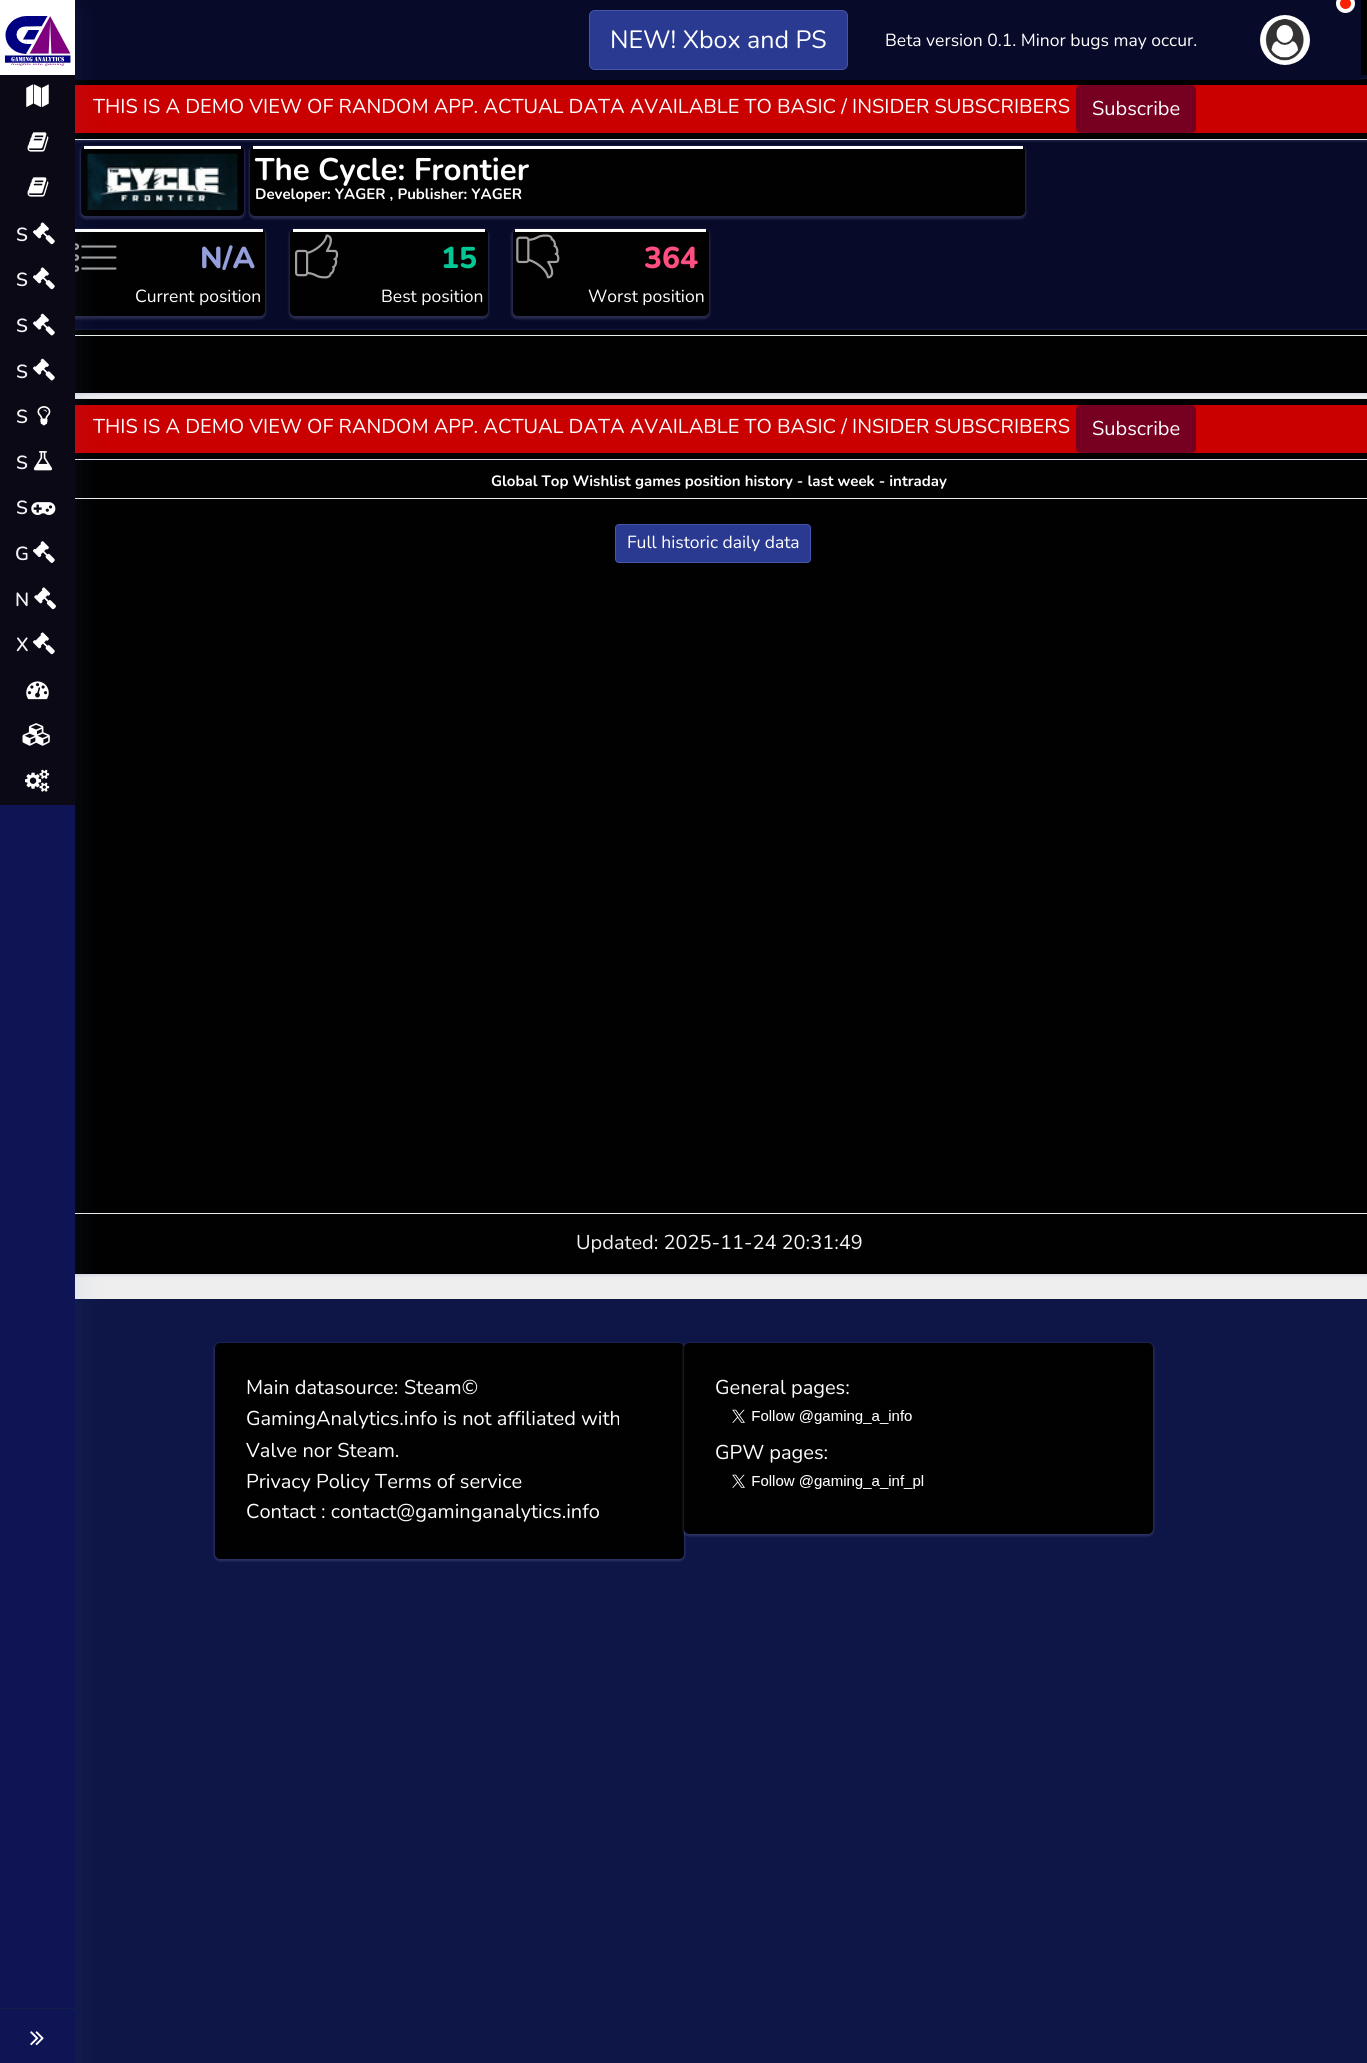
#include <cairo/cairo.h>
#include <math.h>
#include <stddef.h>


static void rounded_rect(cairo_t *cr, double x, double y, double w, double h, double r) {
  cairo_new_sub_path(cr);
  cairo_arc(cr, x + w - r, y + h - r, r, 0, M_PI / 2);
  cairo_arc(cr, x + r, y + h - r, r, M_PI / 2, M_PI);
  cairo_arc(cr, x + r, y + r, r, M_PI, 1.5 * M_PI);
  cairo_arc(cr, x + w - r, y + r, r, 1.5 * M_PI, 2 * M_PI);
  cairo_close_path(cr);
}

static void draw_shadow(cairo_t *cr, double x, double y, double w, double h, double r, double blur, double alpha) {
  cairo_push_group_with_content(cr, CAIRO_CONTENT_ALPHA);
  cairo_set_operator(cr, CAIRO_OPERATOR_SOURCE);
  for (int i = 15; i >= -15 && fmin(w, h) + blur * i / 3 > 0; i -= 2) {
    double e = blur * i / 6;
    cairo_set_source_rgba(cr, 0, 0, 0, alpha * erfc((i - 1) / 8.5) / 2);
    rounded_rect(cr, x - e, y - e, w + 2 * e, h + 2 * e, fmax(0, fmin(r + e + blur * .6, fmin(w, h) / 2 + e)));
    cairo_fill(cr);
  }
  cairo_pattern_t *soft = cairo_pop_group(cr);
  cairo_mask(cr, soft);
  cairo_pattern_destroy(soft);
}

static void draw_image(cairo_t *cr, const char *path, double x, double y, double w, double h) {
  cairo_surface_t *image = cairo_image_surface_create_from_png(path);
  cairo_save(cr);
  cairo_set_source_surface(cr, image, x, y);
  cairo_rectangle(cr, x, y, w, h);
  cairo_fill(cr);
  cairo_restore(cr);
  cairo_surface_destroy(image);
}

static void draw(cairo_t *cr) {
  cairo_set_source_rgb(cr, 14 / 255.0, 22 / 255.0, 71 / 255.0);
  cairo_paint(cr);
  cairo_set_source_rgb(cr, 7 / 255.0, 10 / 255.0, 41 / 255.0);
  cairo_rectangle(cr, 75, 75, 1292, 255);
  cairo_fill(cr);
  cairo_set_source_rgb(cr, 238 / 255.0, 238 / 255.0, 238 / 255.0);
  cairo_rectangle(cr, 75, 139, 1292, 1);
  cairo_fill(cr);
  cairo_set_source_rgb(cr, 154 / 255.0, 154 / 255.0, 204 / 255.0);
  draw_shadow(cr, 61, 79, 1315, 62, 6, 1, 0.22);
  cairo_set_source_rgb(cr, 1 / 255.0, 1 / 255.0, 1 / 255.0);
  cairo_rectangle(cr, 75, 79, 1292, 60);
  cairo_fill(cr);
  cairo_set_source_rgb(cr, 0, 0, 0);
  draw_shadow(cr, 1, 0, 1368, 75, 0, 2, 0.15);
  cairo_set_source_rgb(cr, 0, 0, 0);
  cairo_rectangle(cr, 1361, 0, 6, 75);
  cairo_fill(cr);
  cairo_set_source_rgb(cr, 7 / 255.0, 10 / 255.0, 41 / 255.0);
  cairo_rectangle(cr, 75, 0, 1286, 80);
  cairo_fill(cr);
  cairo_set_source_rgb(cr, 43 / 255.0, 58 / 255.0, 145 / 255.0);
  rounded_rect(cr, 589.5, 10.5, 258, 59, 5.5);
  cairo_fill_preserve(cr);
  cairo_set_source_rgb(cr, 71 / 255.0, 85 / 255.0, 171 / 255.0);
  cairo_set_line_width(cr, 1);
  cairo_stroke(cr);
  cairo_set_source_rgb(cr, 249 / 255.0, 33 / 255.0, 2 / 255.0);
  cairo_arc(cr, 1345.5, 3.5, 7.5, 0, 2 * M_PI);
  cairo_fill_preserve(cr);
  cairo_set_source_rgb(cr, 1, 1, 1);
  cairo_set_line_width(cr, 4);
  cairo_stroke(cr);
  draw_image(cr, "images/1.png", 1260, 15, 50, 50);
  cairo_set_source_rgb(cr, 238 / 255.0, 238 / 255.0, 238 / 255.0);
  cairo_rectangle(cr, 75, 393, 1292, 906);
  cairo_fill(cr);
  cairo_set_source_rgb(cr, 202 / 255.0, 0, 0);
  cairo_rectangle(cr, 75, 85, 1292, 48);
  cairo_fill(cr);
  cairo_set_source_rgb(cr, 154 / 255.0, 154 / 255.0, 204 / 255.0);
  draw_shadow(cr, 80, 146, 165, 73, 6, 1, 0.22);
  cairo_set_source_rgb(cr, 1 / 255.0, 1 / 255.0, 1 / 255.0);
  rounded_rect(cr, 81, 146, 163, 70, 5);
  cairo_fill(cr);
  cairo_set_source_rgb(cr, 1, 1, 1);
  cairo_rectangle(cr, 84, 146, 157, 3);
  cairo_fill(cr);
  draw_image(cr, "images/16.png", 87, 153, 151, 57);
  cairo_set_source_rgb(cr, 154 / 255.0, 154 / 255.0, 204 / 255.0);
  draw_shadow(cr, 68, 229, 198, 90, 6, 1, 0.22);
  cairo_set_source_rgb(cr, 1 / 255.0, 1 / 255.0, 1 / 255.0);
  rounded_rect(cr, 69, 229, 196, 87, 5);
  cairo_fill(cr);
  cairo_set_source_rgb(cr, 1, 1, 1);
  cairo_rectangle(cr, 71, 229, 192, 3);
  cairo_fill(cr);
  draw_image(cr, "images/17.png", 75, 243, 42, 29);
  cairo_set_source_rgb(cr, 154 / 255.0, 154 / 255.0, 204 / 255.0);
  draw_shadow(cr, 55, 330, 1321, 65, 6, 1, 0.22);
  cairo_set_source_rgb(cr, 1 / 255.0, 1 / 255.0, 1 / 255.0);
  cairo_rectangle(cr, 75, 330, 1292, 63);
  cairo_fill(cr);
  cairo_set_source_rgb(cr, 238 / 255.0, 238 / 255.0, 238 / 255.0);
  cairo_rectangle(cr, 75, 335, 1292, 1);
  cairo_fill(cr);
  cairo_set_source_rgb(cr, 154 / 255.0, 154 / 255.0, 204 / 255.0);
  draw_shadow(cr, 61, 399, 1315, 62, 6, 1, 0.22);
  cairo_set_source_rgb(cr, 1 / 255.0, 1 / 255.0, 1 / 255.0);
  cairo_rectangle(cr, 75, 399, 1292, 60);
  cairo_fill(cr);
  cairo_set_source_rgb(cr, 202 / 255.0, 0, 0);
  cairo_rectangle(cr, 75, 405, 1292, 48);
  cairo_fill(cr);
  cairo_set_source_rgb(cr, 154 / 255.0, 154 / 255.0, 204 / 255.0);
  draw_shadow(cr, 61, 460, 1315, 816, 6, 1, 0.22);
  cairo_set_source_rgb(cr, 1 / 255.0, 1 / 255.0, 1 / 255.0);
  cairo_rectangle(cr, 75, 460, 1292, 814);
  cairo_fill(cr);
  cairo_set_source_rgb(cr, 238 / 255.0, 238 / 255.0, 238 / 255.0);
  cairo_rectangle(cr, 75, 498, 1292, 1);
  cairo_fill(cr);
  cairo_rectangle(cr, 75, 1213, 1292, 1);
  cairo_fill(cr);
  cairo_set_source_rgb(cr, 61 / 255.0, 119 / 255.0, 180 / 255.0);
  draw_shadow(cr, 0, 10, 75, 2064, 0, 15, 0.12);
  cairo_set_source_rgb(cr, 15 / 255.0, 20 / 255.0, 85 / 255.0);
  cairo_rectangle(cr, 0, 805, 75, 1258);
  cairo_fill(cr);
  cairo_set_source_rgb(cr, 1, 1, 1);
  cairo_rectangle(cr, 0, 0, 75, 75);
  cairo_fill(cr);
  draw_image(cr, "images/2.png", 4, 16, 67, 50);
  cairo_set_source_rgb(cr, 10 / 255.0, 9 / 255.0, 21 / 255.0);
  cairo_rectangle(cr, 0, 75, 75, 730);
  cairo_fill(cr);
  draw_image(cr, "images/3.png", 26, 84, 23, 23);
  draw_image(cr, "images/4.png", 27, 132, 22, 20);
  draw_image(cr, "images/4.png", 27, 177, 22, 20);
  draw_image(cr, "images/5.png", 33, 222, 22, 23);
  draw_image(cr, "images/5.png", 33, 267, 22, 23);
  draw_image(cr, "images/6.png", 33, 313, 22, 23);
  draw_image(cr, "images/6.png", 33, 358, 22, 23);
  draw_image(cr, "images/7.png", 37, 406, 14, 20);
  draw_image(cr, "images/8.png", 33, 451, 20, 20);
  draw_image(cr, "images/9.png", 31, 502, 25, 13);
  draw_image(cr, "images/10.png", 33, 541, 22, 22);
  draw_image(cr, "images/11.png", 34, 587, 22, 23);
  draw_image(cr, "images/5.png", 33, 632, 22, 23);
  draw_image(cr, "images/12.png", 26, 681, 23, 19);
  draw_image(cr, "images/13.png", 22, 723, 28, 23);
  draw_image(cr, "images/14.png", 25, 769, 25, 23);
  cairo_set_source_rgb(cr, 19 / 255.0, 31 / 255.0, 72 / 255.0);
  cairo_rectangle(cr, 0, 2008, 75, 1);
  cairo_fill(cr);
  draw_image(cr, "images/15.png", 30, 2031, 14, 15);
  cairo_set_source_rgb(cr, 119 / 255.0, 0, 33 / 255.0);
  rounded_rect(cr, 1076.5, 85.5, 119, 47, 4.5);
  cairo_fill_preserve(cr);
  cairo_set_line_width(cr, 1);
  cairo_stroke(cr);
  cairo_set_source_rgb(cr, 154 / 255.0, 154 / 255.0, 204 / 255.0);
  draw_shadow(cr, 249, 146, 777, 73, 6, 1, 0.22);
  cairo_set_source_rgb(cr, 1 / 255.0, 1 / 255.0, 1 / 255.0);
  rounded_rect(cr, 250, 146, 775, 70, 5);
  cairo_fill(cr);
  cairo_set_source_rgb(cr, 1, 1, 1);
  cairo_rectangle(cr, 253, 146, 770, 3);
  cairo_fill(cr);
  cairo_set_source_rgb(cr, 154 / 255.0, 154 / 255.0, 204 / 255.0);
  draw_shadow(cr, 289, 229, 200, 90, 6, 1, 0.22);
  cairo_set_source_rgb(cr, 1 / 255.0, 1 / 255.0, 1 / 255.0);
  rounded_rect(cr, 290, 229, 198, 87, 5);
  cairo_fill(cr);
  cairo_set_source_rgb(cr, 1, 1, 1);
  cairo_rectangle(cr, 293, 229, 192, 3);
  cairo_fill(cr);
  draw_image(cr, "images/18.png", 295, 234, 44, 45);
  cairo_set_source_rgb(cr, 154 / 255.0, 154 / 255.0, 204 / 255.0);
  draw_shadow(cr, 511, 229, 199, 90, 6, 1, 0.22);
  cairo_set_source_rgb(cr, 1 / 255.0, 1 / 255.0, 1 / 255.0);
  rounded_rect(cr, 513, 229, 196, 87, 5);
  cairo_fill(cr);
  cairo_set_source_rgb(cr, 1, 1, 1);
  cairo_rectangle(cr, 515, 229, 191, 3);
  cairo_fill(cr);
  draw_image(cr, "images/19.png", 516, 234, 44, 45);
  cairo_set_source_rgb(cr, 119 / 255.0, 0, 33 / 255.0);
  rounded_rect(cr, 1076.5, 405.5, 119, 47, 4.5);
  cairo_fill_preserve(cr);
  cairo_stroke(cr);
  cairo_set_source_rgb(cr, 43 / 255.0, 58 / 255.0, 145 / 255.0);
  rounded_rect(cr, 615.5, 524.5, 195, 38, 3.5);
  cairo_fill_preserve(cr);
  cairo_set_source_rgb(cr, 71 / 255.0, 85 / 255.0, 171 / 255.0);
  cairo_stroke(cr);
  cairo_set_source_rgb(cr, 154 / 255.0, 154 / 255.0, 204 / 255.0);
  draw_shadow(cr, 214, 1343, 471, 218, 6, 1, 0.22);
  cairo_set_source_rgb(cr, 1 / 255.0, 1 / 255.0, 1 / 255.0);
  rounded_rect(cr, 215, 1343, 469, 216, 5);
  cairo_fill(cr);
  cairo_set_source_rgb(cr, 154 / 255.0, 154 / 255.0, 204 / 255.0);
  draw_shadow(cr, 683, 1343, 471, 193, 6, 1, 0.22);
  cairo_set_source_rgb(cr, 1 / 255.0, 1 / 255.0, 1 / 255.0);
  rounded_rect(cr, 684, 1343, 469, 191, 5);
  cairo_fill(cr);
  draw_image(cr, "images/20.png", 732, 1409, 180, 15);
  draw_image(cr, "images/21.png", 732, 1474, 192, 15);
  cairo_select_font_face(cr, "Nunito", CAIRO_FONT_SLANT_NORMAL, CAIRO_FONT_WEIGHT_NORMAL);
  cairo_set_font_size(cr, 25);
  cairo_set_source_rgb(cr, 1, 1, 1);
  cairo_move_to(cr, 610, 48);
  cairo_show_text(cr, "NEW! Xbox and PS");
  cairo_set_font_size(cr, 17.5);
  cairo_move_to(cr, 885, 46);
  cairo_show_text(cr, "Beta version 0.1. Minor bugs may occur.");
  cairo_select_font_face(cr, "Nunito SemiBold", CAIRO_FONT_SLANT_NORMAL, CAIRO_FONT_WEIGHT_NORMAL);
  cairo_set_font_size(cr, 19);
  cairo_set_source_rgb(cr, 243 / 255.0, 244 / 255.0, 245 / 255.0);
  cairo_move_to(cr, 16, 241);
  cairo_show_text(cr, "S");
  cairo_move_to(cr, 16, 286);
  cairo_show_text(cr, "S");
  cairo_move_to(cr, 16, 332);
  cairo_show_text(cr, "S");
  cairo_move_to(cr, 16, 378);
  cairo_show_text(cr, "S");
  cairo_move_to(cr, 16, 423);
  cairo_show_text(cr, "S");
  cairo_move_to(cr, 16, 469);
  cairo_show_text(cr, "S");
  cairo_move_to(cr, 16, 514);
  cairo_show_text(cr, "S");
  cairo_move_to(cr, 15, 560);
  cairo_show_text(cr, "G");
  cairo_move_to(cr, 15, 606);
  cairo_show_text(cr, "N");
  cairo_move_to(cr, 16, 651);
  cairo_show_text(cr, "X");
  cairo_select_font_face(cr, "Nunito", CAIRO_FONT_SLANT_NORMAL, CAIRO_FONT_WEIGHT_NORMAL);
  cairo_set_font_size(cr, 20);
  cairo_set_source_rgb(cr, 1, 1, 1);
  cairo_move_to(cr, 93, 113);
  cairo_show_text(cr, "THIS IS A DEMO VIEW OF RANDOM APP. ACTUAL DATA AVAILABLE TO BASIC / INSIDER SUBSCRIBERS");
  cairo_move_to(cr, 1092, 115);
  cairo_show_text(cr, "Subscribe");
  cairo_select_font_face(cr, "Nunito", CAIRO_FONT_SLANT_NORMAL, CAIRO_FONT_WEIGHT_BOLD);
  cairo_set_font_size(cr, 31.25);
  cairo_move_to(cr, 255, 180);
  cairo_show_text(cr, "The Cycle: Frontier");
  cairo_set_font_size(cr, 15);
  cairo_move_to(cr, 255, 199);
  cairo_show_text(cr, "Developer: YAGER , Publisher: YAGER");
  cairo_select_font_face(cr, "Nunito ExtraBold", CAIRO_FONT_SLANT_NORMAL, CAIRO_FONT_WEIGHT_NORMAL);
  cairo_set_font_size(cr, 30);
  cairo_set_source_rgb(cr, 148 / 255.0, 159 / 255.0, 220 / 255.0);
  cairo_move_to(cr, 200, 268);
  cairo_show_text(cr, "N/A");
  cairo_select_font_face(cr, "Nunito", CAIRO_FONT_SLANT_NORMAL, CAIRO_FONT_WEIGHT_NORMAL);
  cairo_set_font_size(cr, 17.5);
  cairo_set_source_rgb(cr, 1, 1, 1);
  cairo_move_to(cr, 135, 302);
  cairo_show_text(cr, "Current position");
  cairo_select_font_face(cr, "Nunito ExtraBold", CAIRO_FONT_SLANT_NORMAL, CAIRO_FONT_WEIGHT_NORMAL);
  cairo_set_font_size(cr, 30);
  cairo_set_source_rgb(cr, 3 / 255.0, 200 / 255.0, 149 / 255.0);
  cairo_move_to(cr, 441, 268);
  cairo_show_text(cr, "15");
  cairo_select_font_face(cr, "Nunito", CAIRO_FONT_SLANT_NORMAL, CAIRO_FONT_WEIGHT_NORMAL);
  cairo_set_font_size(cr, 17.5);
  cairo_set_source_rgb(cr, 1, 1, 1);
  cairo_move_to(cr, 381, 302);
  cairo_show_text(cr, "Best position");
  cairo_select_font_face(cr, "Nunito ExtraBold", CAIRO_FONT_SLANT_NORMAL, CAIRO_FONT_WEIGHT_NORMAL);
  cairo_set_font_size(cr, 30);
  cairo_set_source_rgb(cr, 1, 79 / 255.0, 129 / 255.0);
  cairo_move_to(cr, 644, 268);
  cairo_show_text(cr, "364");
  cairo_select_font_face(cr, "Nunito", CAIRO_FONT_SLANT_NORMAL, CAIRO_FONT_WEIGHT_NORMAL);
  cairo_set_font_size(cr, 17.5);
  cairo_set_source_rgb(cr, 1, 1, 1);
  cairo_move_to(cr, 588, 302);
  cairo_show_text(cr, "Worst position");
  cairo_set_font_size(cr, 20);
  cairo_move_to(cr, 93, 433);
  cairo_show_text(cr, "THIS IS A DEMO VIEW OF RANDOM APP. ACTUAL DATA AVAILABLE TO BASIC / INSIDER SUBSCRIBERS");
  cairo_move_to(cr, 1092, 435);
  cairo_show_text(cr, "Subscribe");
  cairo_select_font_face(cr, "Nunito", CAIRO_FONT_SLANT_NORMAL, CAIRO_FONT_WEIGHT_BOLD);
  cairo_set_font_size(cr, 15);
  cairo_move_to(cr, 491, 486);
  cairo_show_text(cr, "Global Top Wishlist games position history - last week - intraday");
  cairo_select_font_face(cr, "Nunito", CAIRO_FONT_SLANT_NORMAL, CAIRO_FONT_WEIGHT_NORMAL);
  cairo_set_font_size(cr, 17.5);
  cairo_move_to(cr, 627, 548);
  cairo_show_text(cr, "Full historic daily data");
  cairo_set_font_size(cr, 20);
  cairo_set_source_rgb(cr, 243 / 255.0, 244 / 255.0, 245 / 255.0);
  cairo_move_to(cr, 576, 1249);
  cairo_show_text(cr, "Updated: 2025-11-24 20:31:49");
  cairo_set_source_rgb(cr, 1, 1, 1);
  cairo_move_to(cr, 246, 1394);
  cairo_show_text(cr, "Main datasource:");
  cairo_move_to(cr, 404, 1394);
  cairo_show_text(cr, "Steam©");
  cairo_move_to(cr, 246, 1425);
  cairo_show_text(cr, "GamingAnalytics.info is not affiliated with");
  cairo_move_to(cr, 246, 1457);
  cairo_show_text(cr, "Valve nor Steam.");
  cairo_move_to(cr, 246, 1488);
  cairo_show_text(cr, "Privacy Policy Terms of service");
  cairo_move_to(cr, 246, 1518);
  cairo_show_text(cr, "Contact : contact@gaminganalytics.info");
  cairo_move_to(cr, 715, 1394);
  cairo_show_text(cr, "General pages:");
  cairo_move_to(cr, 715, 1459);
  cairo_show_text(cr, "GPW pages:");
}

int main(void) {
  cairo_surface_t *surface = cairo_image_surface_create(CAIRO_FORMAT_RGB24, 1367, 2063);
  cairo_t *cr = cairo_create(surface);
  cairo_font_options_t *options = cairo_font_options_create();
  cairo_font_options_set_hint_metrics(options, CAIRO_HINT_METRICS_OFF);
  cairo_font_options_set_hint_style(options, CAIRO_HINT_STYLE_NONE);
  cairo_set_font_options(cr, options);
  cairo_set_miter_limit(cr, 4);
  draw(cr);
  cairo_surface_write_to_png(surface, "out.png");
  cairo_font_options_destroy(options);
  cairo_destroy(cr);
  cairo_surface_destroy(surface);
  return 0;
}
